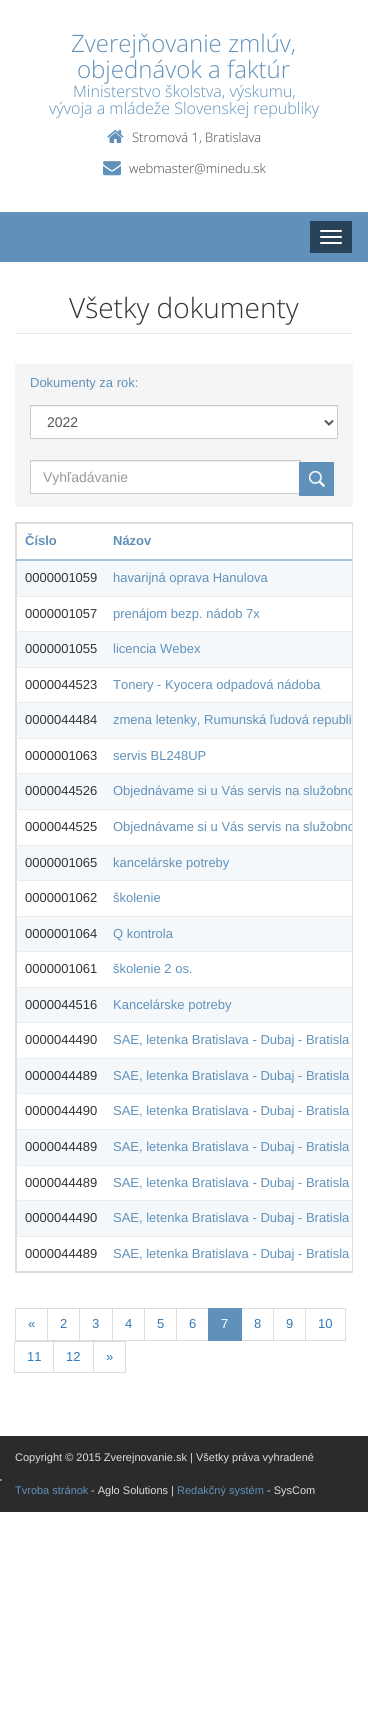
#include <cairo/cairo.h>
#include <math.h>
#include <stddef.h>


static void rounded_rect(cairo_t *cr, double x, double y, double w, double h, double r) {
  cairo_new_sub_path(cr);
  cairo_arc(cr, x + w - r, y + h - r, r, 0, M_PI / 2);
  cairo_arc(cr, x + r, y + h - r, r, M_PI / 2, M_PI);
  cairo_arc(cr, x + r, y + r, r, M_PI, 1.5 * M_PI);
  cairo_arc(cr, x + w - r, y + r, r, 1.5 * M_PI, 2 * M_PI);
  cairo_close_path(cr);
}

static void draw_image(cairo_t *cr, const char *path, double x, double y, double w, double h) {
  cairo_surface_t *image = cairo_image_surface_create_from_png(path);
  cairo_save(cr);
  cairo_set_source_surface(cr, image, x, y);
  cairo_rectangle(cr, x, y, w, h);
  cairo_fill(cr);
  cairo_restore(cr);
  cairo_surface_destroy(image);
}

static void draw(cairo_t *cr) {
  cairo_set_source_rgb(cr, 1, 1, 1);
  cairo_paint(cr);
  draw_image(cr, "images/1.png", 107, 130, 17, 13);
  draw_image(cr, "images/2.png", 103, 161, 18, 15);
  cairo_set_source_rgb(cr, 96 / 255.0, 145 / 255.0, 186 / 255.0);
  cairo_rectangle(cr, 0, 212, 368, 50);
  cairo_fill(cr);
  cairo_set_source_rgb(cr, 39 / 255.0, 67 / 255.0, 90 / 255.0);
  cairo_rectangle(cr, 310, 221, 42, 32);
  cairo_fill(cr);
  cairo_set_source_rgb(cr, 1, 1, 1);
  rounded_rect(cr, 320, 230, 22, 2, 1);
  cairo_fill(cr);
  rounded_rect(cr, 320, 236, 22, 2, 1);
  cairo_fill(cr);
  rounded_rect(cr, 320, 242, 22, 2, 1);
  cairo_fill(cr);
  cairo_set_source_rgb(cr, 232 / 255.0, 232 / 255.0, 232 / 255.0);
  cairo_rectangle(cr, 15, 333, 338, 1);
  cairo_fill(cr);
  cairo_set_source_rgb(cr, 245 / 255.0, 245 / 255.0, 245 / 255.0);
  cairo_rectangle(cr, 15, 364, 338, 143);
  cairo_fill(cr);
  cairo_set_source_rgb(cr, 1, 1, 1);
  cairo_rectangle(cr, 31, 407, 306, 31);
  cairo_fill(cr);
  cairo_set_source_rgb(cr, 236 / 255.0, 236 / 255.0, 236 / 255.0);
  cairo_rectangle(cr, 31, 406, 306, 1);
  cairo_fill(cr);
  cairo_rectangle(cr, 30.5, 405.5, 307, 33);
  cairo_set_source_rgb(cr, 204 / 255.0, 204 / 255.0, 204 / 255.0);
  cairo_set_line_width(cr, 1);
  cairo_stroke(cr);
  cairo_new_path(cr);
  cairo_move_to(cr, 325, 420.5);
  cairo_line_to(cr, 329, 424.5);
  cairo_line_to(cr, 333, 420.5);
  cairo_set_source_rgb(cr, 85 / 255.0, 85 / 255.0, 85 / 255.0);
  cairo_set_line_width(cr, 2);
  cairo_stroke(cr);
  cairo_set_source_rgb(cr, 1, 1, 1);
  cairo_rectangle(cr, 31, 462, 268, 31);
  cairo_fill(cr);
  cairo_set_source_rgb(cr, 236 / 255.0, 236 / 255.0, 236 / 255.0);
  cairo_rectangle(cr, 31, 461, 269, 1);
  cairo_fill(cr);
  cairo_rectangle(cr, 30.5, 460.5, 270, 33);
  cairo_set_source_rgb(cr, 204 / 255.0, 204 / 255.0, 204 / 255.0);
  cairo_set_line_width(cr, 1);
  cairo_stroke(cr);
  cairo_set_source_rgb(cr, 96 / 255.0, 145 / 255.0, 186 / 255.0);
  cairo_rectangle(cr, 299, 462, 35, 34);
  cairo_fill(cr);
  draw_image(cr, "images/3.png", 309, 471, 16, 16);
  cairo_rectangle(cr, 15.5, 522.5, 337, 750);
  cairo_set_source_rgb(cr, 221 / 255.0, 221 / 255.0, 221 / 255.0);
  cairo_stroke(cr);
  cairo_rectangle(cr, 16, 523, 336, 1);
  cairo_fill(cr);
  cairo_rectangle(cr, 16, 1271, 336, 1);
  cairo_fill(cr);
  cairo_rectangle(cr, 16, 523, 1, 749);
  cairo_fill(cr);
  cairo_set_source_rgb(cr, 167 / 255.0, 194 / 255.0, 217 / 255.0);
  cairo_rectangle(cr, 16, 559, 336, 2);
  cairo_fill(cr);
  cairo_set_source_rgb(cr, 245 / 255.0, 248 / 255.0, 251 / 255.0);
  cairo_rectangle(cr, 17, 561, 335, 35);
  cairo_fill(cr);
  cairo_set_source_rgb(cr, 235 / 255.0, 235 / 255.0, 235 / 255.0);
  cairo_rectangle(cr, 16, 596, 336, 1);
  cairo_fill(cr);
  cairo_set_source_rgb(cr, 245 / 255.0, 248 / 255.0, 251 / 255.0);
  cairo_rectangle(cr, 17, 632, 335, 35);
  cairo_fill(cr);
  cairo_set_source_rgb(cr, 235 / 255.0, 235 / 255.0, 235 / 255.0);
  cairo_rectangle(cr, 16, 631, 336, 1);
  cairo_fill(cr);
  cairo_rectangle(cr, 16, 667, 336, 1);
  cairo_fill(cr);
  cairo_set_source_rgb(cr, 245 / 255.0, 248 / 255.0, 251 / 255.0);
  cairo_rectangle(cr, 17, 703, 335, 35);
  cairo_fill(cr);
  cairo_set_source_rgb(cr, 235 / 255.0, 235 / 255.0, 235 / 255.0);
  cairo_rectangle(cr, 16, 702, 336, 1);
  cairo_fill(cr);
  cairo_rectangle(cr, 16, 738, 336, 1);
  cairo_fill(cr);
  cairo_set_source_rgb(cr, 245 / 255.0, 248 / 255.0, 251 / 255.0);
  cairo_rectangle(cr, 17, 774, 335, 35);
  cairo_fill(cr);
  cairo_set_source_rgb(cr, 235 / 255.0, 235 / 255.0, 235 / 255.0);
  cairo_rectangle(cr, 16, 773, 336, 1);
  cairo_fill(cr);
  cairo_rectangle(cr, 16, 809, 336, 1);
  cairo_fill(cr);
  cairo_set_source_rgb(cr, 245 / 255.0, 248 / 255.0, 251 / 255.0);
  cairo_rectangle(cr, 17, 846, 335, 34);
  cairo_fill(cr);
  cairo_set_source_rgb(cr, 235 / 255.0, 235 / 255.0, 235 / 255.0);
  cairo_rectangle(cr, 16, 845, 336, 1);
  cairo_fill(cr);
  cairo_rectangle(cr, 16, 880, 336, 1);
  cairo_fill(cr);
  cairo_set_source_rgb(cr, 245 / 255.0, 248 / 255.0, 251 / 255.0);
  cairo_rectangle(cr, 17, 917, 335, 34);
  cairo_fill(cr);
  cairo_set_source_rgb(cr, 235 / 255.0, 235 / 255.0, 235 / 255.0);
  cairo_rectangle(cr, 16, 916, 336, 1);
  cairo_fill(cr);
  cairo_rectangle(cr, 16, 951, 336, 1);
  cairo_fill(cr);
  cairo_set_source_rgb(cr, 245 / 255.0, 248 / 255.0, 251 / 255.0);
  cairo_rectangle(cr, 17, 988, 335, 34);
  cairo_fill(cr);
  cairo_set_source_rgb(cr, 235 / 255.0, 235 / 255.0, 235 / 255.0);
  cairo_rectangle(cr, 16, 987, 336, 1);
  cairo_fill(cr);
  cairo_rectangle(cr, 16, 1022, 336, 1);
  cairo_fill(cr);
  cairo_set_source_rgb(cr, 245 / 255.0, 248 / 255.0, 251 / 255.0);
  cairo_rectangle(cr, 17, 1059, 335, 34);
  cairo_fill(cr);
  cairo_set_source_rgb(cr, 235 / 255.0, 235 / 255.0, 235 / 255.0);
  cairo_rectangle(cr, 16, 1058, 336, 1);
  cairo_fill(cr);
  cairo_rectangle(cr, 16, 1093, 336, 1);
  cairo_fill(cr);
  cairo_set_source_rgb(cr, 245 / 255.0, 248 / 255.0, 251 / 255.0);
  cairo_rectangle(cr, 17, 1130, 335, 35);
  cairo_fill(cr);
  cairo_set_source_rgb(cr, 235 / 255.0, 235 / 255.0, 235 / 255.0);
  cairo_rectangle(cr, 16, 1129, 336, 1);
  cairo_fill(cr);
  cairo_rectangle(cr, 16, 1165, 336, 1);
  cairo_fill(cr);
  cairo_set_source_rgb(cr, 245 / 255.0, 248 / 255.0, 251 / 255.0);
  cairo_rectangle(cr, 17, 1201, 335, 35);
  cairo_fill(cr);
  cairo_set_source_rgb(cr, 235 / 255.0, 235 / 255.0, 235 / 255.0);
  cairo_rectangle(cr, 16, 1200, 336, 1);
  cairo_fill(cr);
  cairo_rectangle(cr, 16, 1236, 336, 1);
  cairo_fill(cr);
  cairo_rectangle(cr, 15.5, 1308.5, 32, 32);
  cairo_set_source_rgb(cr, 221 / 255.0, 221 / 255.0, 221 / 255.0);
  cairo_stroke(cr);
  cairo_rectangle(cr, 47.5, 1308.5, 32, 32);
  cairo_stroke(cr);
  cairo_rectangle(cr, 79.5, 1308.5, 33, 32);
  cairo_stroke(cr);
  cairo_rectangle(cr, 112.5, 1308.5, 32, 32);
  cairo_stroke(cr);
  cairo_rectangle(cr, 144.5, 1308.5, 32, 32);
  cairo_stroke(cr);
  cairo_rectangle(cr, 176.5, 1308.5, 32, 32);
  cairo_stroke(cr);
  cairo_rectangle(cr, 241.5, 1308.5, 32, 32);
  cairo_stroke(cr);
  cairo_set_source_rgb(cr, 96 / 255.0, 145 / 255.0, 186 / 255.0);
  cairo_rectangle(cr, 208, 1308, 34, 33);
  cairo_fill(cr);
  cairo_rectangle(cr, 273.5, 1308.5, 32, 32);
  cairo_set_source_rgb(cr, 221 / 255.0, 221 / 255.0, 221 / 255.0);
  cairo_stroke(cr);
  cairo_rectangle(cr, 305.5, 1308.5, 40, 32);
  cairo_stroke(cr);
  cairo_rectangle(cr, 14.5, 1341.5, 39, 31);
  cairo_stroke(cr);
  cairo_rectangle(cr, 53.5, 1341.5, 40, 31);
  cairo_stroke(cr);
  cairo_rectangle(cr, 93.5, 1341.5, 32, 31);
  cairo_stroke(cr);
  cairo_set_source_rgb(cr, 43 / 255.0, 43 / 255.0, 43 / 255.0);
  cairo_rectangle(cr, 0, 1436, 368, 76);
  cairo_fill(cr);
  cairo_set_source_rgb(cr, 96 / 255.0, 145 / 255.0, 186 / 255.0);
  cairo_rectangle(cr, 0, 1479, 2, 2);
  cairo_fill(cr);
  cairo_select_font_face(cr, "Open Sans Light", CAIRO_FONT_SLANT_NORMAL, CAIRO_FONT_WEIGHT_NORMAL);
  cairo_set_font_size(cr, 24);
  cairo_move_to(cr, 71, 52);
  cairo_show_text(cr, "Zverejňovanie zmlúv,");
  cairo_move_to(cr, 77, 78);
  cairo_show_text(cr, "objednávok a faktúr");
  cairo_set_font_size(cr, 16);
  cairo_move_to(cr, 73, 97);
  cairo_show_text(cr, "Ministerstvo školstva, výskumu,");
  cairo_move_to(cr, 49, 114);
  cairo_show_text(cr, "vývoja a mládeže Slovenskej republiky");
  cairo_set_font_size(cr, 13);
  cairo_set_source_rgb(cr, 68 / 255.0, 68 / 255.0, 68 / 255.0);
  cairo_move_to(cr, 132, 142);
  cairo_show_text(cr, "Stromová 1, Bratislava");
  cairo_move_to(cr, 129, 173);
  cairo_show_text(cr, "webmaster@minedu.sk");
  cairo_set_font_size(cr, 28);
  cairo_set_source_rgb(cr, 51 / 255.0, 51 / 255.0, 51 / 255.0);
  cairo_move_to(cr, 69, 318);
  cairo_show_text(cr, "Všetky dokumenty");
  cairo_select_font_face(cr, "Liberation Sans", CAIRO_FONT_SLANT_NORMAL, CAIRO_FONT_WEIGHT_NORMAL);
  cairo_set_font_size(cr, 13);
  cairo_set_source_rgb(cr, 96 / 255.0, 145 / 255.0, 186 / 255.0);
  cairo_move_to(cr, 30, 387);
  cairo_show_text(cr, "Dokumenty za rok:");
  cairo_set_font_size(cr, 14);
  cairo_set_source_rgb(cr, 85 / 255.0, 85 / 255.0, 85 / 255.0);
  cairo_move_to(cr, 47, 427);
  cairo_show_text(cr, "2022");
  cairo_set_source_rgb(cr, 153 / 255.0, 153 / 255.0, 153 / 255.0);
  cairo_move_to(cr, 43, 482);
  cairo_show_text(cr, "Vyhľadávanie");
  cairo_select_font_face(cr, "Liberation Sans", CAIRO_FONT_SLANT_NORMAL, CAIRO_FONT_WEIGHT_BOLD);
  cairo_set_font_size(cr, 13);
  cairo_set_source_rgb(cr, 96 / 255.0, 145 / 255.0, 186 / 255.0);
  cairo_move_to(cr, 25, 545);
  cairo_show_text(cr, "Číslo");
  cairo_move_to(cr, 113, 545);
  cairo_show_text(cr, "Názov");
  cairo_select_font_face(cr, "Liberation Sans", CAIRO_FONT_SLANT_NORMAL, CAIRO_FONT_WEIGHT_NORMAL);
  cairo_set_source_rgb(cr, 51 / 255.0, 51 / 255.0, 51 / 255.0);
  cairo_move_to(cr, 25, 582);
  cairo_show_text(cr, "0000001059");
  cairo_set_source_rgb(cr, 96 / 255.0, 145 / 255.0, 186 / 255.0);
  cairo_move_to(cr, 113, 582);
  cairo_show_text(cr, "havarijná oprava Hanulova");
  cairo_set_source_rgb(cr, 51 / 255.0, 51 / 255.0, 51 / 255.0);
  cairo_move_to(cr, 25, 618);
  cairo_show_text(cr, "0000001057");
  cairo_set_source_rgb(cr, 96 / 255.0, 145 / 255.0, 186 / 255.0);
  cairo_move_to(cr, 113, 618);
  cairo_show_text(cr, "prenájom bezp. nádob 7x");
  cairo_set_source_rgb(cr, 51 / 255.0, 51 / 255.0, 51 / 255.0);
  cairo_move_to(cr, 25, 653);
  cairo_show_text(cr, "0000001055");
  cairo_set_source_rgb(cr, 96 / 255.0, 145 / 255.0, 186 / 255.0);
  cairo_move_to(cr, 113, 653);
  cairo_show_text(cr, "licencia Webex");
  cairo_set_source_rgb(cr, 51 / 255.0, 51 / 255.0, 51 / 255.0);
  cairo_move_to(cr, 25, 689);
  cairo_show_text(cr, "0000044523");
  cairo_set_source_rgb(cr, 96 / 255.0, 145 / 255.0, 186 / 255.0);
  cairo_move_to(cr, 113, 689);
  cairo_show_text(cr, "Tonery - Kyocera odpadová nádoba");
  cairo_set_source_rgb(cr, 51 / 255.0, 51 / 255.0, 51 / 255.0);
  cairo_move_to(cr, 25, 724);
  cairo_show_text(cr, "0000044484");
  cairo_set_source_rgb(cr, 96 / 255.0, 145 / 255.0, 186 / 255.0);
  cairo_move_to(cr, 113, 724);
  cairo_show_text(cr, "zmena letenky, Rumunská ľudová republi");
  cairo_set_source_rgb(cr, 51 / 255.0, 51 / 255.0, 51 / 255.0);
  cairo_move_to(cr, 25, 760);
  cairo_show_text(cr, "0000001063");
  cairo_set_source_rgb(cr, 96 / 255.0, 145 / 255.0, 186 / 255.0);
  cairo_move_to(cr, 113, 760);
  cairo_show_text(cr, "servis BL248UP");
  cairo_set_source_rgb(cr, 51 / 255.0, 51 / 255.0, 51 / 255.0);
  cairo_move_to(cr, 25, 795);
  cairo_show_text(cr, "0000044526");
  cairo_save(cr);
  cairo_rectangle(cr, 16, 523, 336, 749);
  cairo_clip(cr);
  cairo_set_source_rgb(cr, 96 / 255.0, 145 / 255.0, 186 / 255.0);
  cairo_move_to(cr, 113, 795);
  cairo_show_text(cr, "Objednávame si u Vás servis na služobno");
  cairo_restore(cr);
  cairo_move_to(cr, 25, 831);
  cairo_show_text(cr, "0000044525");
  cairo_save(cr);
  cairo_rectangle(cr, 16, 523, 336, 749);
  cairo_clip(cr);
  cairo_set_source_rgb(cr, 96 / 255.0, 145 / 255.0, 186 / 255.0);
  cairo_move_to(cr, 113, 831);
  cairo_show_text(cr, "Objednávame si u Vás servis na služobno");
  cairo_restore(cr);
  cairo_move_to(cr, 25, 867);
  cairo_show_text(cr, "0000001065");
  cairo_set_source_rgb(cr, 96 / 255.0, 145 / 255.0, 186 / 255.0);
  cairo_move_to(cr, 113, 867);
  cairo_show_text(cr, "kancelárske potreby");
  cairo_set_source_rgb(cr, 51 / 255.0, 51 / 255.0, 51 / 255.0);
  cairo_move_to(cr, 25, 902);
  cairo_show_text(cr, "0000001062");
  cairo_set_source_rgb(cr, 96 / 255.0, 145 / 255.0, 186 / 255.0);
  cairo_move_to(cr, 113, 902);
  cairo_show_text(cr, "školenie");
  cairo_set_source_rgb(cr, 51 / 255.0, 51 / 255.0, 51 / 255.0);
  cairo_move_to(cr, 25, 938);
  cairo_show_text(cr, "0000001064");
  cairo_set_source_rgb(cr, 96 / 255.0, 145 / 255.0, 186 / 255.0);
  cairo_move_to(cr, 113, 938);
  cairo_show_text(cr, "Q kontrola");
  cairo_set_source_rgb(cr, 51 / 255.0, 51 / 255.0, 51 / 255.0);
  cairo_move_to(cr, 25, 973);
  cairo_show_text(cr, "0000001061");
  cairo_set_source_rgb(cr, 96 / 255.0, 145 / 255.0, 186 / 255.0);
  cairo_move_to(cr, 113, 973);
  cairo_show_text(cr, "školenie 2 os.");
  cairo_set_source_rgb(cr, 51 / 255.0, 51 / 255.0, 51 / 255.0);
  cairo_move_to(cr, 25, 1009);
  cairo_show_text(cr, "0000044516");
  cairo_set_source_rgb(cr, 96 / 255.0, 145 / 255.0, 186 / 255.0);
  cairo_move_to(cr, 113, 1009);
  cairo_show_text(cr, "Kancelárske potreby");
  cairo_set_source_rgb(cr, 51 / 255.0, 51 / 255.0, 51 / 255.0);
  cairo_move_to(cr, 25, 1044);
  cairo_show_text(cr, "0000044490");
  cairo_set_source_rgb(cr, 96 / 255.0, 145 / 255.0, 186 / 255.0);
  cairo_move_to(cr, 113, 1044);
  cairo_show_text(cr, "SAE, letenka Bratislava - Dubaj - Bratisla");
  cairo_set_source_rgb(cr, 51 / 255.0, 51 / 255.0, 51 / 255.0);
  cairo_move_to(cr, 25, 1080);
  cairo_show_text(cr, "0000044489");
  cairo_set_source_rgb(cr, 96 / 255.0, 145 / 255.0, 186 / 255.0);
  cairo_move_to(cr, 113, 1080);
  cairo_show_text(cr, "SAE, letenka Bratislava - Dubaj - Bratisla");
  cairo_set_source_rgb(cr, 51 / 255.0, 51 / 255.0, 51 / 255.0);
  cairo_move_to(cr, 25, 1115);
  cairo_show_text(cr, "0000044490");
  cairo_set_source_rgb(cr, 96 / 255.0, 145 / 255.0, 186 / 255.0);
  cairo_move_to(cr, 113, 1115);
  cairo_show_text(cr, "SAE, letenka Bratislava - Dubaj - Bratisla");
  cairo_set_source_rgb(cr, 51 / 255.0, 51 / 255.0, 51 / 255.0);
  cairo_move_to(cr, 25, 1151);
  cairo_show_text(cr, "0000044489");
  cairo_set_source_rgb(cr, 96 / 255.0, 145 / 255.0, 186 / 255.0);
  cairo_move_to(cr, 113, 1151);
  cairo_show_text(cr, "SAE, letenka Bratislava - Dubaj - Bratisla");
  cairo_set_source_rgb(cr, 51 / 255.0, 51 / 255.0, 51 / 255.0);
  cairo_move_to(cr, 25, 1187);
  cairo_show_text(cr, "0000044489");
  cairo_set_source_rgb(cr, 96 / 255.0, 145 / 255.0, 186 / 255.0);
  cairo_move_to(cr, 113, 1187);
  cairo_show_text(cr, "SAE, letenka Bratislava - Dubaj - Bratisla");
  cairo_set_source_rgb(cr, 51 / 255.0, 51 / 255.0, 51 / 255.0);
  cairo_move_to(cr, 25, 1222);
  cairo_show_text(cr, "0000044490");
  cairo_set_source_rgb(cr, 96 / 255.0, 145 / 255.0, 186 / 255.0);
  cairo_move_to(cr, 113, 1222);
  cairo_show_text(cr, "SAE, letenka Bratislava - Dubaj - Bratisla");
  cairo_set_source_rgb(cr, 51 / 255.0, 51 / 255.0, 51 / 255.0);
  cairo_move_to(cr, 25, 1258);
  cairo_show_text(cr, "0000044489");
  cairo_set_source_rgb(cr, 96 / 255.0, 145 / 255.0, 186 / 255.0);
  cairo_move_to(cr, 113, 1258);
  cairo_show_text(cr, "SAE, letenka Bratislava - Dubaj - Bratisla");
  cairo_set_source_rgb(cr, 51 / 255.0, 122 / 255.0, 183 / 255.0);
  cairo_move_to(cr, 28, 1328);
  cairo_show_text(cr, "«");
  cairo_move_to(cr, 60, 1328);
  cairo_show_text(cr, "2");
  cairo_move_to(cr, 92, 1328);
  cairo_show_text(cr, "3");
  cairo_move_to(cr, 125, 1328);
  cairo_show_text(cr, "4");
  cairo_move_to(cr, 157, 1328);
  cairo_show_text(cr, "5");
  cairo_move_to(cr, 189, 1328);
  cairo_show_text(cr, "6");
  cairo_set_source_rgb(cr, 1, 1, 1);
  cairo_move_to(cr, 221, 1328);
  cairo_show_text(cr, "7");
  cairo_set_source_rgb(cr, 51 / 255.0, 122 / 255.0, 183 / 255.0);
  cairo_move_to(cr, 254, 1328);
  cairo_show_text(cr, "8");
  cairo_move_to(cr, 286, 1328);
  cairo_show_text(cr, "9");
  cairo_move_to(cr, 318, 1328);
  cairo_show_text(cr, "10");
  cairo_move_to(cr, 27, 1361);
  cairo_show_text(cr, "11");
  cairo_move_to(cr, 66, 1361);
  cairo_show_text(cr, "12");
  cairo_move_to(cr, 106, 1361);
  cairo_show_text(cr, "»");
  cairo_set_font_size(cr, 11);
  cairo_set_source_rgb(cr, 220 / 255.0, 220 / 255.0, 220 / 255.0);
  cairo_move_to(cr, 15, 1461);
  cairo_show_text(cr, "Copyright © 2015 Zverejnovanie.sk | Všetky práva vyhradené");
  cairo_set_source_rgb(cr, 96 / 255.0, 145 / 255.0, 186 / 255.0);
  cairo_move_to(cr, 15, 1494);
  cairo_show_text(cr, "Tvroba stránok");
  cairo_set_source_rgb(cr, 220 / 255.0, 220 / 255.0, 220 / 255.0);
  cairo_move_to(cr, 91, 1494);
  cairo_show_text(cr, "- Aglo Solutions |");
  cairo_set_source_rgb(cr, 96 / 255.0, 145 / 255.0, 186 / 255.0);
  cairo_move_to(cr, 177, 1494);
  cairo_show_text(cr, "Redakčný systém");
  cairo_set_source_rgb(cr, 220 / 255.0, 220 / 255.0, 220 / 255.0);
  cairo_move_to(cr, 267, 1494);
  cairo_show_text(cr, "- SysCom");
}

int main(void) {
  cairo_surface_t *surface = cairo_image_surface_create(CAIRO_FORMAT_RGB24, 368, 1722);
  cairo_t *cr = cairo_create(surface);
  cairo_font_options_t *options = cairo_font_options_create();
  cairo_font_options_set_hint_metrics(options, CAIRO_HINT_METRICS_OFF);
  cairo_font_options_set_hint_style(options, CAIRO_HINT_STYLE_NONE);
  cairo_set_font_options(cr, options);
  cairo_set_miter_limit(cr, 4);
  draw(cr);
  cairo_surface_write_to_png(surface, "out.png");
  cairo_font_options_destroy(options);
  cairo_destroy(cr);
  cairo_surface_destroy(surface);
  return 0;
}
